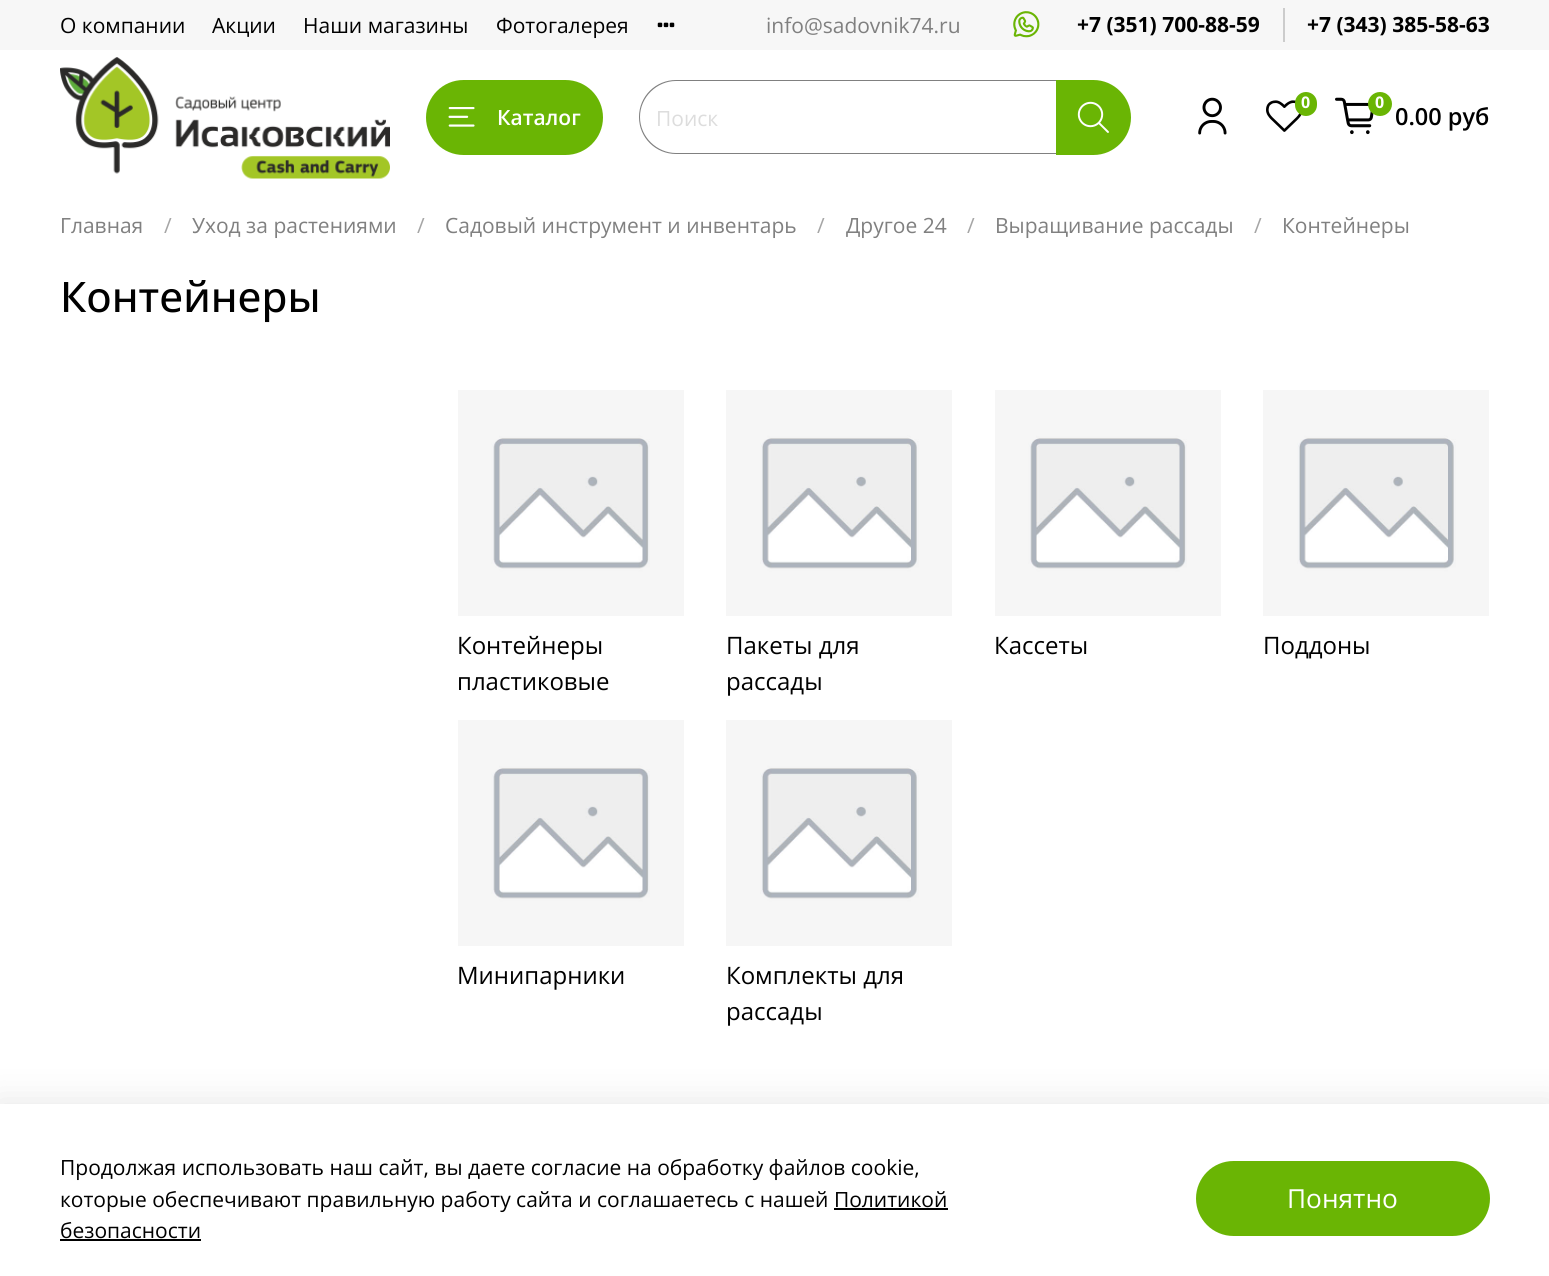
#include <cairo/cairo.h>
#include <math.h>
#include <stddef.h>


static void rounded_rect(cairo_t *cr, double x, double y, double w, double h, double r) {
  cairo_new_sub_path(cr);
  cairo_arc(cr, x + w - r, y + h - r, r, 0, M_PI / 2);
  cairo_arc(cr, x + r, y + h - r, r, M_PI / 2, M_PI);
  cairo_arc(cr, x + r, y + r, r, M_PI, 1.5 * M_PI);
  cairo_arc(cr, x + w - r, y + r, r, 1.5 * M_PI, 2 * M_PI);
  cairo_close_path(cr);
}

static void draw_shadow(cairo_t *cr, double x, double y, double w, double h, double r, double blur, double alpha) {
  cairo_push_group_with_content(cr, CAIRO_CONTENT_ALPHA);
  cairo_set_operator(cr, CAIRO_OPERATOR_SOURCE);
  for (int i = 15; i >= -15 && fmin(w, h) + blur * i / 3 > 0; i -= 2) {
    double e = blur * i / 6;
    cairo_set_source_rgba(cr, 0, 0, 0, alpha * erfc((i - 1) / 8.5) / 2);
    rounded_rect(cr, x - e, y - e, w + 2 * e, h + 2 * e, fmax(0, fmin(r + e + blur * .6, fmin(w, h) / 2 + e)));
    cairo_fill(cr);
  }
  cairo_pattern_t *soft = cairo_pop_group(cr);
  cairo_mask(cr, soft);
  cairo_pattern_destroy(soft);
}

static void draw_image(cairo_t *cr, const char *path, double x, double y, double w, double h) {
  cairo_surface_t *image = cairo_image_surface_create_from_png(path);
  cairo_save(cr);
  cairo_set_source_surface(cr, image, x, y);
  cairo_rectangle(cr, x, y, w, h);
  cairo_fill(cr);
  cairo_restore(cr);
  cairo_surface_destroy(image);
}

static void draw(cairo_t *cr) {
  cairo_set_source_rgb(cr, 1, 1, 1);
  cairo_paint(cr);
  cairo_set_source_rgb(cr, 247 / 255.0, 247 / 255.0, 247 / 255.0);
  cairo_rectangle(cr, 0, 0, 1549, 50);
  cairo_fill(cr);
  draw_image(cr, "images/1.png", 657, 22, 18, 6);
  draw_image(cr, "images/2.png", 1013, 11, 27, 27);
  cairo_set_source_rgb(cr, 204 / 255.0, 204 / 255.0, 204 / 255.0);
  cairo_rectangle(cr, 1283, 8, 2, 34);
  cairo_fill(cr);
  draw_image(cr, "images/3.png", 60, 57, 330, 122);
  cairo_set_source_rgb(cr, 106 / 255.0, 181 / 255.0, 4 / 255.0);
  rounded_rect(cr, 426, 80, 177, 75, 37.5);
  cairo_fill(cr);
  draw_image(cr, "images/4.png", 448, 107, 27, 20);
  cairo_set_source_rgb(cr, 128 / 255.0, 128 / 255.0, 128 / 255.0);
  cairo_set_fill_rule(cr, CAIRO_FILL_RULE_EVEN_ODD);
  cairo_new_path(cr);
  cairo_move_to(cr, 676, 80);
  cairo_line_to(cr, 1056, 80);
  cairo_line_to(cr, 1056, 154);
  cairo_line_to(cr, 676, 154);
  cairo_curve_to(cr, 656, 154, 639, 138, 639, 117);
  cairo_curve_to(cr, 639, 96, 656, 80, 676, 80);
  cairo_close_path(cr);
  cairo_move_to(cr, 676, 81);
  cairo_line_to(cr, 1056, 81);
  cairo_line_to(cr, 1056, 153);
  cairo_line_to(cr, 676, 153);
  cairo_curve_to(cr, 657, 153, 640, 137, 640, 117);
  cairo_curve_to(cr, 640, 97, 657, 81, 676, 81);
  cairo_close_path(cr);
  cairo_fill(cr);
  cairo_set_source_rgb(cr, 106 / 255.0, 181 / 255.0, 4 / 255.0);
  cairo_new_path(cr);
  cairo_move_to(cr, 1056, 80);
  cairo_line_to(cr, 1093.5, 80);
  cairo_curve_to(cr, 1114, 80, 1131, 97, 1131, 117.5);
  cairo_curve_to(cr, 1131, 138, 1114, 155, 1093.5, 155);
  cairo_line_to(cr, 1056, 155);
  cairo_close_path(cr);
  cairo_fill(cr);
  draw_image(cr, "images/5.png", 1077, 101, 32, 32);
  draw_image(cr, "images/6.png", 1198, 97, 29, 38);
  draw_image(cr, "images/7.png", 1266, 100, 36, 32);
  rounded_rect(cr, 1295, 92, 22, 24, 11);
  cairo_fill(cr);
  draw_image(cr, "images/8.png", 1335, 97, 39, 38);
  cairo_arc(cr, 1380, 104, 12, 0, 2 * M_PI);
  cairo_fill(cr);
  draw_image(cr, "images/9.png", 458, 390, 226, 226);
  draw_image(cr, "images/10.png", 726, 390, 226, 226);
  draw_image(cr, "images/11.png", 995, 390, 226, 226);
  draw_image(cr, "images/10.png", 1263, 390, 226, 226);
  draw_image(cr, "images/9.png", 458, 720, 226, 226);
  draw_image(cr, "images/10.png", 726, 720, 226, 226);
  cairo_set_source_rgb(cr, 0, 0, 0);
  draw_shadow(cr, -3, 1100, 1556, 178, 0, 17, 0.09);
  cairo_set_source_rgb(cr, 1, 1, 1);
  cairo_rectangle(cr, 0, 1104, 1549, 172);
  cairo_fill(cr);
  cairo_set_source_rgb(cr, 0, 0, 0);
  cairo_rectangle(cr, 834, 1208, 114, 2);
  cairo_fill(cr);
  cairo_rectangle(cr, 60, 1239, 141, 2);
  cairo_fill(cr);
  cairo_set_source_rgb(cr, 106 / 255.0, 181 / 255.0, 4 / 255.0);
  rounded_rect(cr, 1196, 1161, 294, 75, 37.5);
  cairo_fill(cr);
  cairo_select_font_face(cr, "Open Sans", CAIRO_FONT_SLANT_NORMAL, CAIRO_FONT_WEIGHT_NORMAL);
  cairo_set_font_size(cr, 21);
  cairo_set_source_rgb(cr, 0, 0, 0);
  cairo_move_to(cr, 60, 33);
  cairo_show_text(cr, "О компании");
  cairo_move_to(cr, 212, 33);
  cairo_show_text(cr, "Акции");
  cairo_move_to(cr, 303, 33);
  cairo_show_text(cr, "Наши магазины");
  cairo_move_to(cr, 496, 33);
  cairo_show_text(cr, "Фотогалерея");
  cairo_set_source_rgb(cr, 128 / 255.0, 128 / 255.0, 128 / 255.0);
  cairo_move_to(cr, 766, 33);
  cairo_show_text(cr, "info@sadovnik74.ru");
  cairo_select_font_face(cr, "Open Sans", CAIRO_FONT_SLANT_NORMAL, CAIRO_FONT_WEIGHT_BOLD);
  cairo_set_source_rgb(cr, 0, 0, 0);
  cairo_move_to(cr, 1077, 32);
  cairo_show_text(cr, "+7 (351) 700-88-59");
  cairo_move_to(cr, 1307, 32);
  cairo_show_text(cr, "+7 (343) 385-58-63");
  cairo_select_font_face(cr, "Open Sans SemiBold", CAIRO_FONT_SLANT_NORMAL, CAIRO_FONT_WEIGHT_NORMAL);
  cairo_set_source_rgb(cr, 1, 1, 1);
  cairo_move_to(cr, 497, 125);
  cairo_show_text(cr, "Каталог");
  cairo_select_font_face(cr, "Open Sans", CAIRO_FONT_SLANT_NORMAL, CAIRO_FONT_WEIGHT_NORMAL);
  cairo_set_source_rgb(cr, 221 / 255.0, 221 / 255.0, 221 / 255.0);
  cairo_move_to(cr, 656, 126);
  cairo_show_text(cr, "Поиск");
  cairo_select_font_face(cr, "Open Sans", CAIRO_FONT_SLANT_NORMAL, CAIRO_FONT_WEIGHT_BOLD);
  cairo_set_font_size(cr, 16);
  cairo_set_source_rgb(cr, 1, 1, 1);
  cairo_move_to(cr, 1301, 108);
  cairo_show_text(cr, "0");
  cairo_move_to(cr, 1375, 108);
  cairo_show_text(cr, "0");
  cairo_select_font_face(cr, "Open Sans SemiBold", CAIRO_FONT_SLANT_NORMAL, CAIRO_FONT_WEIGHT_NORMAL);
  cairo_set_font_size(cr, 23.5);
  cairo_set_source_rgb(cr, 0, 0, 0);
  cairo_move_to(cr, 1395, 125);
  cairo_show_text(cr, "0.00 руб");
  cairo_select_font_face(cr, "Open Sans", CAIRO_FONT_SLANT_NORMAL, CAIRO_FONT_WEIGHT_NORMAL);
  cairo_set_font_size(cr, 21);
  cairo_set_source_rgb(cr, 128 / 255.0, 128 / 255.0, 128 / 255.0);
  cairo_move_to(cr, 60, 233);
  cairo_show_text(cr, "Главная");
  cairo_set_source_rgb(cr, 166 / 255.0, 166 / 255.0, 166 / 255.0);
  cairo_move_to(cr, 164, 233);
  cairo_show_text(cr, "/");
  cairo_set_source_rgb(cr, 128 / 255.0, 128 / 255.0, 128 / 255.0);
  cairo_move_to(cr, 192, 233);
  cairo_show_text(cr, "Уход за растениями");
  cairo_set_source_rgb(cr, 166 / 255.0, 166 / 255.0, 166 / 255.0);
  cairo_move_to(cr, 417, 233);
  cairo_show_text(cr, "/");
  cairo_set_source_rgb(cr, 128 / 255.0, 128 / 255.0, 128 / 255.0);
  cairo_move_to(cr, 445, 233);
  cairo_show_text(cr, "Садовый инструмент и инвентарь");
  cairo_set_source_rgb(cr, 166 / 255.0, 166 / 255.0, 166 / 255.0);
  cairo_move_to(cr, 817, 233);
  cairo_show_text(cr, "/");
  cairo_set_source_rgb(cr, 128 / 255.0, 128 / 255.0, 128 / 255.0);
  cairo_move_to(cr, 846, 233);
  cairo_show_text(cr, "Другое 24");
  cairo_set_source_rgb(cr, 166 / 255.0, 166 / 255.0, 166 / 255.0);
  cairo_move_to(cr, 967, 233);
  cairo_show_text(cr, "/");
  cairo_set_source_rgb(cr, 128 / 255.0, 128 / 255.0, 128 / 255.0);
  cairo_move_to(cr, 995, 233);
  cairo_show_text(cr, "Выращивание рассады");
  cairo_set_source_rgb(cr, 166 / 255.0, 166 / 255.0, 166 / 255.0);
  cairo_move_to(cr, 1254, 233);
  cairo_show_text(cr, "/");
  cairo_set_source_rgb(cr, 128 / 255.0, 128 / 255.0, 128 / 255.0);
  cairo_move_to(cr, 1282, 233);
  cairo_show_text(cr, "Контейнеры");
  cairo_select_font_face(cr, "Open Sans Medium", CAIRO_FONT_SLANT_NORMAL, CAIRO_FONT_WEIGHT_NORMAL);
  cairo_set_font_size(cr, 42);
  cairo_set_source_rgb(cr, 0, 0, 0);
  cairo_move_to(cr, 60, 312);
  cairo_show_text(cr, "Контейнеры");
  cairo_select_font_face(cr, "Open Sans", CAIRO_FONT_SLANT_NORMAL, CAIRO_FONT_WEIGHT_NORMAL);
  cairo_set_font_size(cr, 24);
  cairo_move_to(cr, 457, 654);
  cairo_show_text(cr, "Контейнеры");
  cairo_move_to(cr, 457, 690);
  cairo_show_text(cr, "пластиковые");
  cairo_move_to(cr, 726, 654);
  cairo_show_text(cr, "Пакеты для");
  cairo_move_to(cr, 726, 690);
  cairo_show_text(cr, "рассады");
  cairo_move_to(cr, 994, 654);
  cairo_show_text(cr, "Кассеты");
  cairo_move_to(cr, 1263, 654);
  cairo_show_text(cr, "Поддоны");
  cairo_move_to(cr, 457, 984);
  cairo_show_text(cr, "Минипарники");
  cairo_move_to(cr, 726, 984);
  cairo_show_text(cr, "Комплекты для");
  cairo_move_to(cr, 726, 1020);
  cairo_show_text(cr, "рассады");
  cairo_set_font_size(cr, 21);
  cairo_move_to(cr, 60, 1175);
  cairo_show_text(cr, "Продолжая использовать наш сайт, вы даете согласие на обработку файлов cookie,");
  cairo_move_to(cr, 60, 1207);
  cairo_show_text(cr, "которые обеспечивают правильную работу сайта и соглашаетесь с нашей Политикой");
  cairo_move_to(cr, 60, 1238);
  cairo_show_text(cr, "безопасности");
  cairo_set_font_size(cr, 26.25);
  cairo_set_source_rgb(cr, 1, 1, 1);
  cairo_move_to(cr, 1287, 1208);
  cairo_show_text(cr, "Понятно");
}

int main(void) {
  cairo_surface_t *surface = cairo_image_surface_create(CAIRO_FORMAT_RGB24, 1549, 1276);
  cairo_t *cr = cairo_create(surface);
  cairo_font_options_t *options = cairo_font_options_create();
  cairo_font_options_set_hint_metrics(options, CAIRO_HINT_METRICS_OFF);
  cairo_font_options_set_hint_style(options, CAIRO_HINT_STYLE_NONE);
  cairo_set_font_options(cr, options);
  cairo_set_miter_limit(cr, 4);
  draw(cr);
  cairo_surface_write_to_png(surface, "out.png");
  cairo_font_options_destroy(options);
  cairo_destroy(cr);
  cairo_surface_destroy(surface);
  return 0;
}
